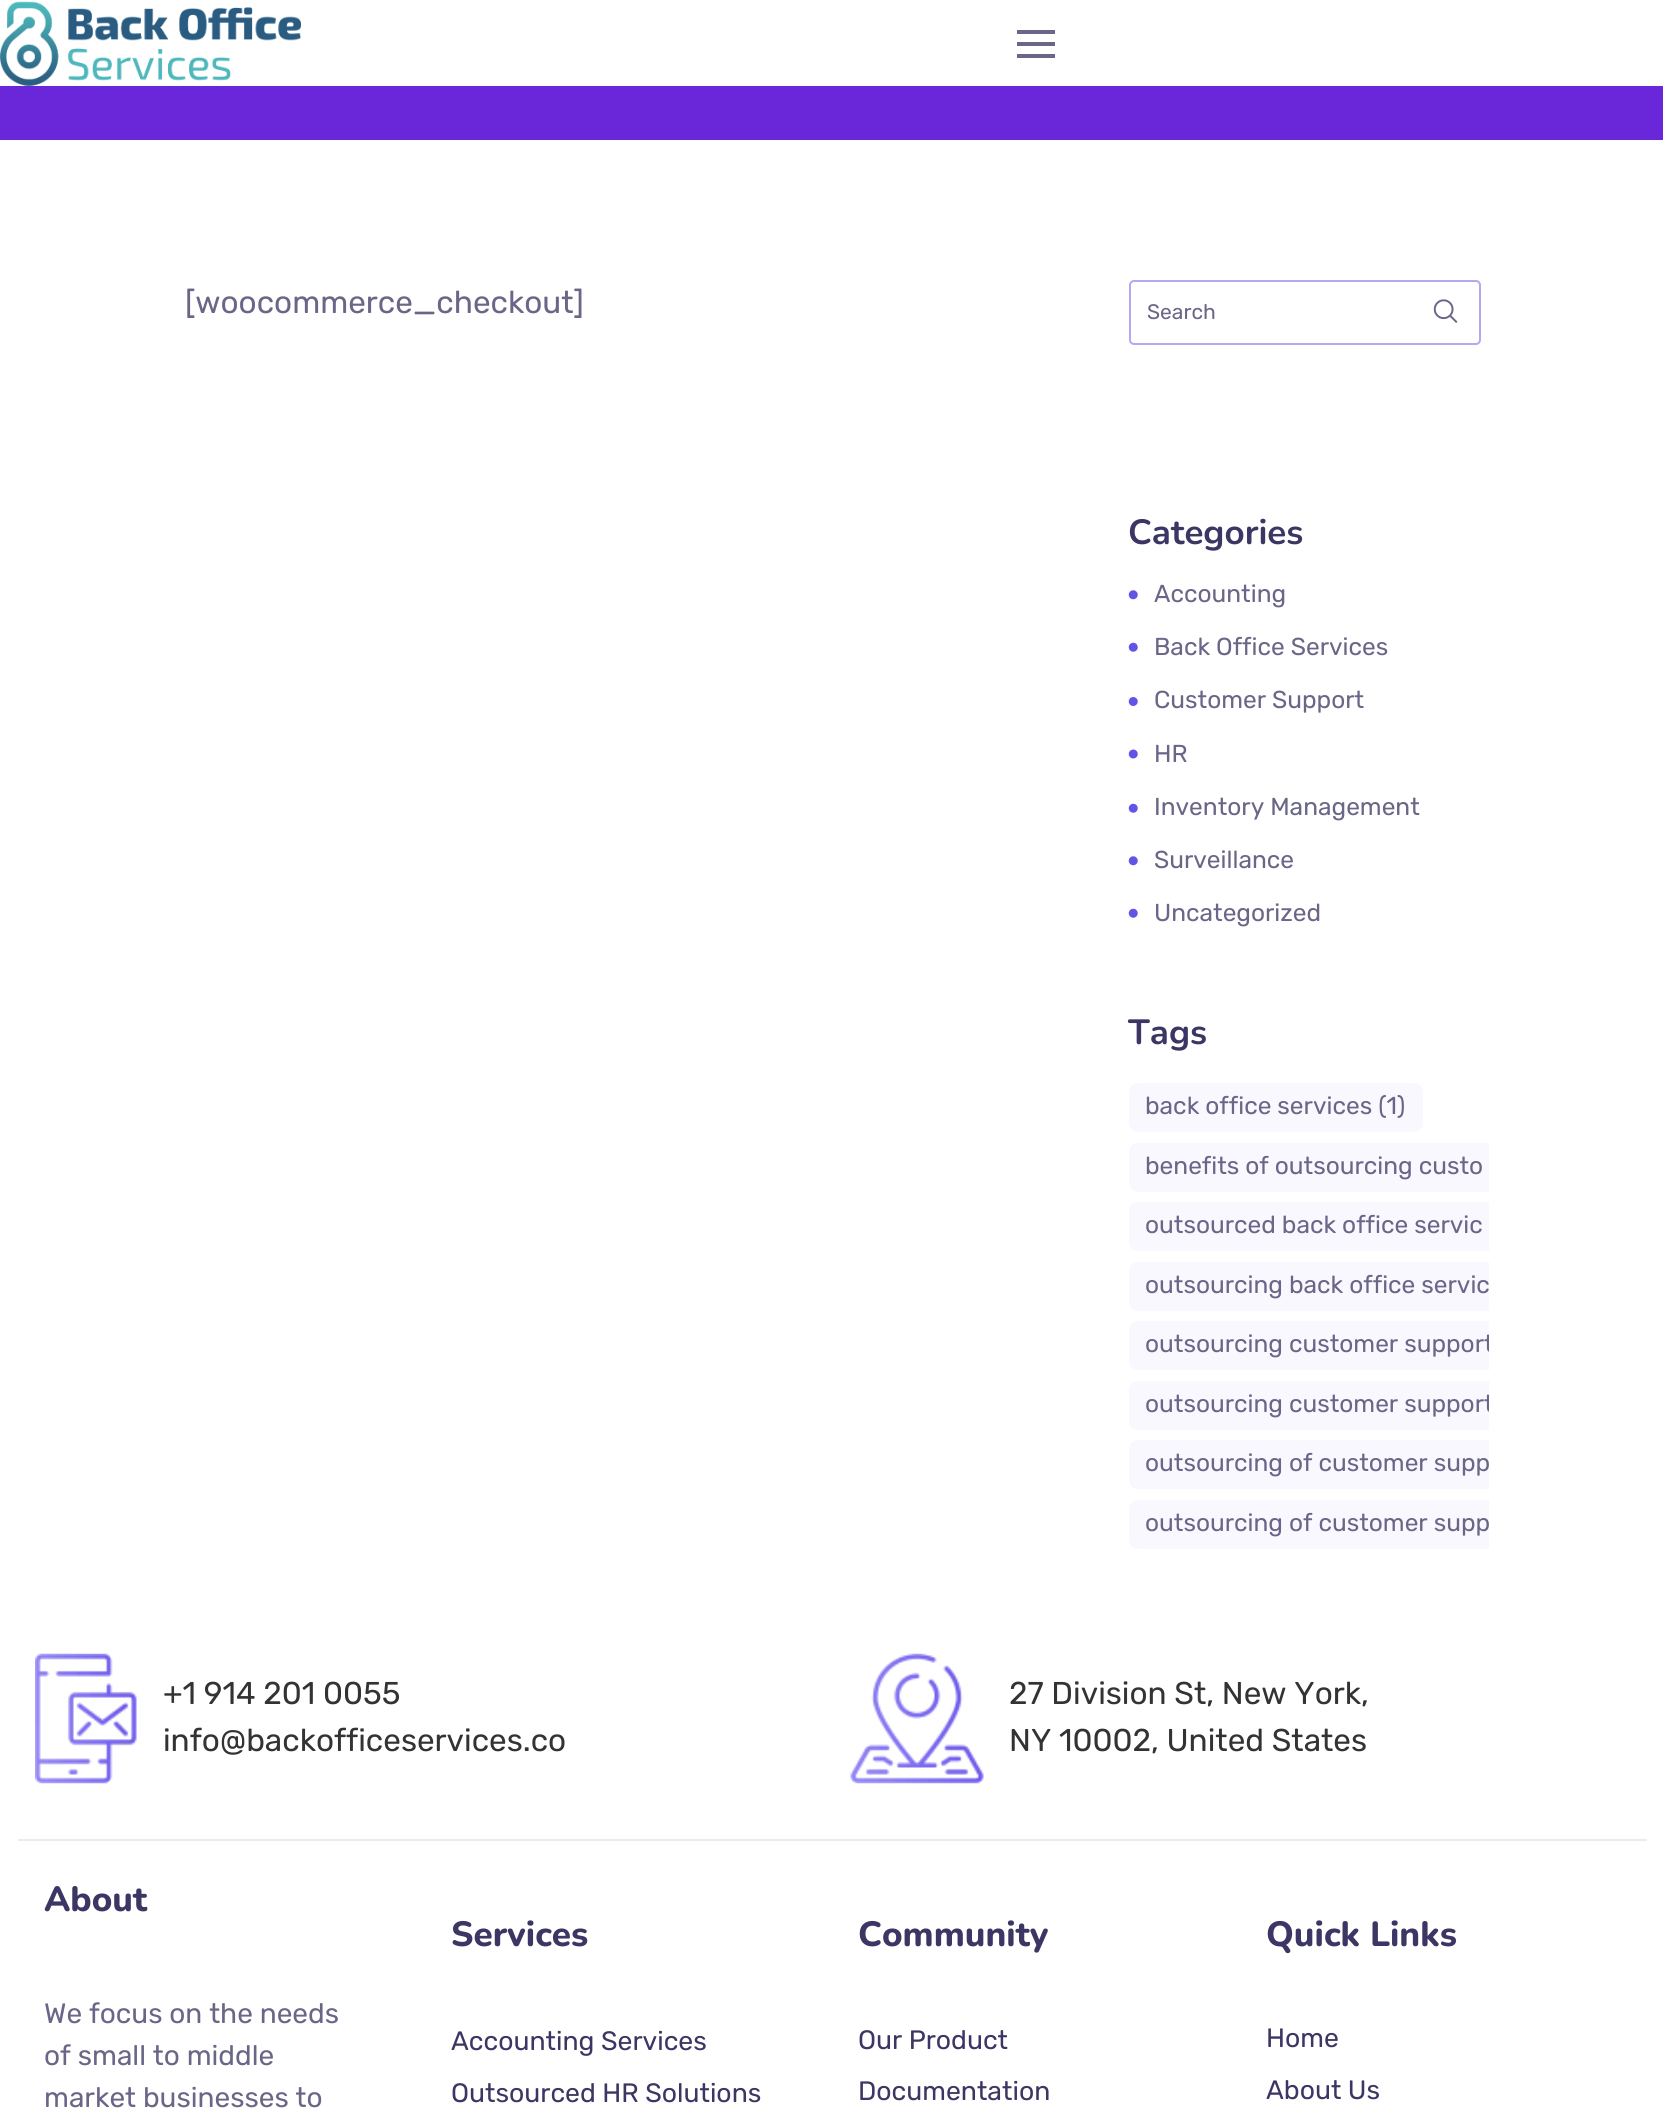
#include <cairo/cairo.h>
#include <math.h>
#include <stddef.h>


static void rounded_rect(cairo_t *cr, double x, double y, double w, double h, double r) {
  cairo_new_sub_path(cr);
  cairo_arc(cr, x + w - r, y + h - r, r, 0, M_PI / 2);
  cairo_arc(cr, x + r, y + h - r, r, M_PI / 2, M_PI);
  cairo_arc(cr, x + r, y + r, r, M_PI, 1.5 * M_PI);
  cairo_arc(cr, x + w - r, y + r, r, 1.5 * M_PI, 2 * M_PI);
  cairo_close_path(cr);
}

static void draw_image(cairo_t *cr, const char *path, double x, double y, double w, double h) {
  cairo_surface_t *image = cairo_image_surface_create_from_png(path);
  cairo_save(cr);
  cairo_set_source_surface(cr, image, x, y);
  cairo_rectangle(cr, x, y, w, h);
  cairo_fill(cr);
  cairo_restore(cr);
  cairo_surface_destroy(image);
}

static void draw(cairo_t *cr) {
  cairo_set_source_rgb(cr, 1, 1, 1);
  cairo_paint(cr);
  draw_image(cr, "images/1.png", 0, 1, 301, 85);
  cairo_set_source_rgb(cr, 105 / 255.0, 102 / 255.0, 135 / 255.0);
  cairo_rectangle(cr, 1017, 42, 38, 4);
  cairo_fill(cr);
  cairo_rectangle(cr, 1017, 30, 38, 4);
  cairo_fill(cr);
  cairo_rectangle(cr, 1017, 54, 38, 4);
  cairo_fill(cr);
  cairo_set_source_rgb(cr, 106 / 255.0, 39 / 255.0, 217 / 255.0);
  cairo_rectangle(cr, 0, 86, 1663, 54);
  cairo_fill(cr);
  rounded_rect(cr, 1130, 281, 350, 63, 4);
  cairo_set_source_rgb(cr, 177 / 255.0, 170 / 255.0, 243 / 255.0);
  cairo_stroke(cr);
  draw_image(cr, "images/2.png", 1433, 299, 25, 24);
  draw_image(cr, "images/3.png", 1128, 590, 10, 10);
  draw_image(cr, "images/4.png", 1128, 642, 10, 10);
  draw_image(cr, "images/5.png", 1128, 697, 10, 9);
  draw_image(cr, "images/6.png", 1128, 749, 10, 10);
  draw_image(cr, "images/4.png", 1128, 803, 10, 10);
  draw_image(cr, "images/3.png", 1128, 856, 10, 10);
  draw_image(cr, "images/4.png", 1128, 908, 10, 10);
  cairo_set_source_rgb(cr, 249 / 255.0, 248 / 255.0, 254 / 255.0);
  rounded_rect(cr, 1129, 1083, 294, 49, 9);
  cairo_fill(cr);
  cairo_new_path(cr);
  cairo_move_to(cr, 1138, 1143);
  cairo_line_to(cr, 1489, 1143);
  cairo_line_to(cr, 1489, 1192);
  cairo_line_to(cr, 1138, 1192);
  cairo_curve_to(cr, 1133, 1192, 1129, 1188, 1129, 1183);
  cairo_line_to(cr, 1129, 1152);
  cairo_curve_to(cr, 1129, 1147, 1133, 1143, 1138, 1143);
  cairo_close_path(cr);
  cairo_fill(cr);
  cairo_new_path(cr);
  cairo_move_to(cr, 1138, 1202);
  cairo_line_to(cr, 1489, 1202);
  cairo_line_to(cr, 1489, 1251);
  cairo_line_to(cr, 1138, 1251);
  cairo_curve_to(cr, 1133, 1251, 1129, 1247, 1129, 1242);
  cairo_line_to(cr, 1129, 1211);
  cairo_curve_to(cr, 1129, 1206, 1133, 1202, 1138, 1202);
  cairo_close_path(cr);
  cairo_fill(cr);
  cairo_new_path(cr);
  cairo_move_to(cr, 1138, 1262);
  cairo_line_to(cr, 1489, 1262);
  cairo_line_to(cr, 1489, 1311);
  cairo_line_to(cr, 1138, 1311);
  cairo_curve_to(cr, 1133, 1311, 1129, 1307, 1129, 1302);
  cairo_line_to(cr, 1129, 1271);
  cairo_curve_to(cr, 1129, 1266, 1133, 1262, 1138, 1262);
  cairo_close_path(cr);
  cairo_fill(cr);
  cairo_new_path(cr);
  cairo_move_to(cr, 1138, 1321);
  cairo_line_to(cr, 1489, 1321);
  cairo_line_to(cr, 1489, 1370);
  cairo_line_to(cr, 1138, 1370);
  cairo_curve_to(cr, 1133, 1370, 1129, 1366, 1129, 1361);
  cairo_line_to(cr, 1129, 1330);
  cairo_curve_to(cr, 1129, 1325, 1133, 1321, 1138, 1321);
  cairo_close_path(cr);
  cairo_fill(cr);
  cairo_new_path(cr);
  cairo_move_to(cr, 1138, 1381);
  cairo_line_to(cr, 1489, 1381);
  cairo_line_to(cr, 1489, 1430);
  cairo_line_to(cr, 1138, 1430);
  cairo_curve_to(cr, 1133, 1430, 1129, 1426, 1129, 1421);
  cairo_line_to(cr, 1129, 1390);
  cairo_curve_to(cr, 1129, 1385, 1133, 1381, 1138, 1381);
  cairo_close_path(cr);
  cairo_fill(cr);
  cairo_new_path(cr);
  cairo_move_to(cr, 1138, 1440);
  cairo_line_to(cr, 1489, 1440);
  cairo_line_to(cr, 1489, 1489);
  cairo_line_to(cr, 1138, 1489);
  cairo_curve_to(cr, 1133, 1489, 1129, 1485, 1129, 1480);
  cairo_line_to(cr, 1129, 1449);
  cairo_curve_to(cr, 1129, 1444, 1133, 1440, 1138, 1440);
  cairo_close_path(cr);
  cairo_fill(cr);
  cairo_new_path(cr);
  cairo_move_to(cr, 1138, 1500);
  cairo_line_to(cr, 1489, 1500);
  cairo_line_to(cr, 1489, 1549);
  cairo_line_to(cr, 1138, 1549);
  cairo_curve_to(cr, 1133, 1549, 1129, 1545, 1129, 1540);
  cairo_line_to(cr, 1129, 1509);
  cairo_curve_to(cr, 1129, 1504, 1133, 1500, 1138, 1500);
  cairo_close_path(cr);
  cairo_fill(cr);
  draw_image(cr, "images/7.png", 35, 1653, 102, 131);
  draw_image(cr, "images/8.png", 850, 1653, 134, 131);
  cairo_set_source_rgb(cr, 235 / 255.0, 235 / 255.0, 239 / 255.0);
  cairo_rectangle(cr, 18, 1839, 1629, 2);
  cairo_fill(cr);
  cairo_select_font_face(cr, "Rubik", CAIRO_FONT_SLANT_NORMAL, CAIRO_FONT_WEIGHT_NORMAL);
  cairo_set_font_size(cr, 31.5);
  cairo_set_source_rgb(cr, 105 / 255.0, 102 / 255.0, 135 / 255.0);
  cairo_move_to(cr, 185, 313);
  cairo_show_text(cr, "[woocommerce_checkout]");
  cairo_set_font_size(cr, 21);
  cairo_move_to(cr, 1147, 319);
  cairo_show_text(cr, "Search");
  cairo_select_font_face(cr, "Nunito", CAIRO_FONT_SLANT_NORMAL, CAIRO_FONT_WEIGHT_BOLD);
  cairo_set_font_size(cr, 35);
  cairo_set_source_rgb(cr, 59 / 255.0, 54 / 255.0, 99 / 255.0);
  cairo_move_to(cr, 1128, 544);
  cairo_show_text(cr, "Categories");
  cairo_select_font_face(cr, "Rubik", CAIRO_FONT_SLANT_NORMAL, CAIRO_FONT_WEIGHT_NORMAL);
  cairo_set_font_size(cr, 24.5);
  cairo_set_source_rgb(cr, 105 / 255.0, 102 / 255.0, 135 / 255.0);
  cairo_move_to(cr, 1154, 602);
  cairo_show_text(cr, "Accounting");
  cairo_move_to(cr, 1154, 655);
  cairo_show_text(cr, "Back Office Services");
  cairo_move_to(cr, 1154, 708);
  cairo_show_text(cr, "Customer Support");
  cairo_move_to(cr, 1154, 762);
  cairo_show_text(cr, "HR");
  cairo_move_to(cr, 1154, 815);
  cairo_show_text(cr, "Inventory Management");
  cairo_move_to(cr, 1154, 868);
  cairo_show_text(cr, "Surveillance");
  cairo_move_to(cr, 1154, 921);
  cairo_show_text(cr, "Uncategorized");
  cairo_select_font_face(cr, "Nunito", CAIRO_FONT_SLANT_NORMAL, CAIRO_FONT_WEIGHT_BOLD);
  cairo_set_font_size(cr, 35);
  cairo_set_source_rgb(cr, 59 / 255.0, 54 / 255.0, 99 / 255.0);
  cairo_move_to(cr, 1128, 1044);
  cairo_show_text(cr, "Tags");
  cairo_select_font_face(cr, "Rubik", CAIRO_FONT_SLANT_NORMAL, CAIRO_FONT_WEIGHT_NORMAL);
  cairo_set_font_size(cr, 24.5);
  cairo_set_source_rgb(cr, 105 / 255.0, 102 / 255.0, 135 / 255.0);
  cairo_move_to(cr, 1145, 1114);
  cairo_show_text(cr, "back office services (1)");
  cairo_move_to(cr, 1145, 1174);
  cairo_show_text(cr, "benefits of outsourcing custo");
  cairo_move_to(cr, 1145, 1233);
  cairo_show_text(cr, "outsourced back office servic");
  cairo_move_to(cr, 1145, 1293);
  cairo_show_text(cr, "outsourcing back office servic");
  cairo_save(cr);
  cairo_rectangle(cr, 1129, 1082, 360, 476);
  cairo_clip(cr);
  cairo_move_to(cr, 1145, 1352);
  cairo_show_text(cr, "outsourcing customer support");
  cairo_move_to(cr, 1145, 1412);
  cairo_show_text(cr, "outsourcing customer support");
  cairo_move_to(cr, 1145, 1471);
  cairo_show_text(cr, "outsourcing of customer supp");
  cairo_move_to(cr, 1145, 1531);
  cairo_show_text(cr, "outsourcing of customer supp");
  cairo_restore(cr);
  cairo_set_font_size(cr, 31.5);
  cairo_set_source_rgb(cr, 51 / 255.0, 51 / 255.0, 51 / 255.0);
  cairo_move_to(cr, 163, 1704);
  cairo_show_text(cr, "+1 914 201 0055");
  cairo_move_to(cr, 163, 1751);
  cairo_show_text(cr, "info@backofficeservices.co");
  cairo_move_to(cr, 1009, 1704);
  cairo_show_text(cr, "27 Division St, New York,");
  cairo_move_to(cr, 1009, 1751);
  cairo_show_text(cr, "NY 10002, United States");
  cairo_select_font_face(cr, "Nunito ExtraBold", CAIRO_FONT_SLANT_NORMAL, CAIRO_FONT_WEIGHT_NORMAL);
  cairo_set_font_size(cr, 35);
  cairo_set_source_rgb(cr, 59 / 255.0, 54 / 255.0, 99 / 255.0);
  cairo_move_to(cr, 44, 1911);
  cairo_show_text(cr, "About");
  cairo_select_font_face(cr, "Rubik", CAIRO_FONT_SLANT_NORMAL, CAIRO_FONT_WEIGHT_NORMAL);
  cairo_set_font_size(cr, 28);
  cairo_set_source_rgb(cr, 105 / 255.0, 102 / 255.0, 135 / 255.0);
  cairo_move_to(cr, 44, 2023);
  cairo_show_text(cr, "We focus on the needs");
  cairo_move_to(cr, 44, 2065);
  cairo_show_text(cr, "of small to middle");
  cairo_move_to(cr, 44, 2107);
  cairo_show_text(cr, "market businesses to");
  cairo_select_font_face(cr, "Nunito ExtraBold", CAIRO_FONT_SLANT_NORMAL, CAIRO_FONT_WEIGHT_NORMAL);
  cairo_set_font_size(cr, 35);
  cairo_set_source_rgb(cr, 59 / 255.0, 54 / 255.0, 99 / 255.0);
  cairo_move_to(cr, 451, 1946);
  cairo_show_text(cr, "Services");
  cairo_select_font_face(cr, "Rubik", CAIRO_FONT_SLANT_NORMAL, CAIRO_FONT_WEIGHT_NORMAL);
  cairo_set_font_size(cr, 26.6);
  cairo_move_to(cr, 451, 2050);
  cairo_show_text(cr, "Accounting Services");
  cairo_move_to(cr, 451, 2102);
  cairo_show_text(cr, "Outsourced HR Solutions");
  cairo_select_font_face(cr, "Nunito ExtraBold", CAIRO_FONT_SLANT_NORMAL, CAIRO_FONT_WEIGHT_NORMAL);
  cairo_set_font_size(cr, 35);
  cairo_move_to(cr, 858, 1946);
  cairo_show_text(cr, "Community");
  cairo_select_font_face(cr, "Rubik", CAIRO_FONT_SLANT_NORMAL, CAIRO_FONT_WEIGHT_NORMAL);
  cairo_set_font_size(cr, 26.6);
  cairo_move_to(cr, 858, 2049);
  cairo_show_text(cr, "Our Product");
  cairo_move_to(cr, 858, 2100);
  cairo_show_text(cr, "Documentation");
  cairo_select_font_face(cr, "Nunito ExtraBold", CAIRO_FONT_SLANT_NORMAL, CAIRO_FONT_WEIGHT_NORMAL);
  cairo_set_font_size(cr, 35);
  cairo_move_to(cr, 1266, 1946);
  cairo_show_text(cr, "Quick Links");
  cairo_select_font_face(cr, "Rubik", CAIRO_FONT_SLANT_NORMAL, CAIRO_FONT_WEIGHT_NORMAL);
  cairo_set_font_size(cr, 26.6);
  cairo_move_to(cr, 1266, 2047);
  cairo_show_text(cr, "Home");
  cairo_move_to(cr, 1266, 2099);
  cairo_show_text(cr, "About Us");
}

int main(void) {
  cairo_surface_t *surface = cairo_image_surface_create(CAIRO_FORMAT_RGB24, 1663, 2127);
  cairo_t *cr = cairo_create(surface);
  cairo_font_options_t *options = cairo_font_options_create();
  cairo_font_options_set_hint_metrics(options, CAIRO_HINT_METRICS_OFF);
  cairo_font_options_set_hint_style(options, CAIRO_HINT_STYLE_NONE);
  cairo_set_font_options(cr, options);
  cairo_set_miter_limit(cr, 4);
  draw(cr);
  cairo_surface_write_to_png(surface, "out.png");
  cairo_font_options_destroy(options);
  cairo_destroy(cr);
  cairo_surface_destroy(surface);
  return 0;
}
